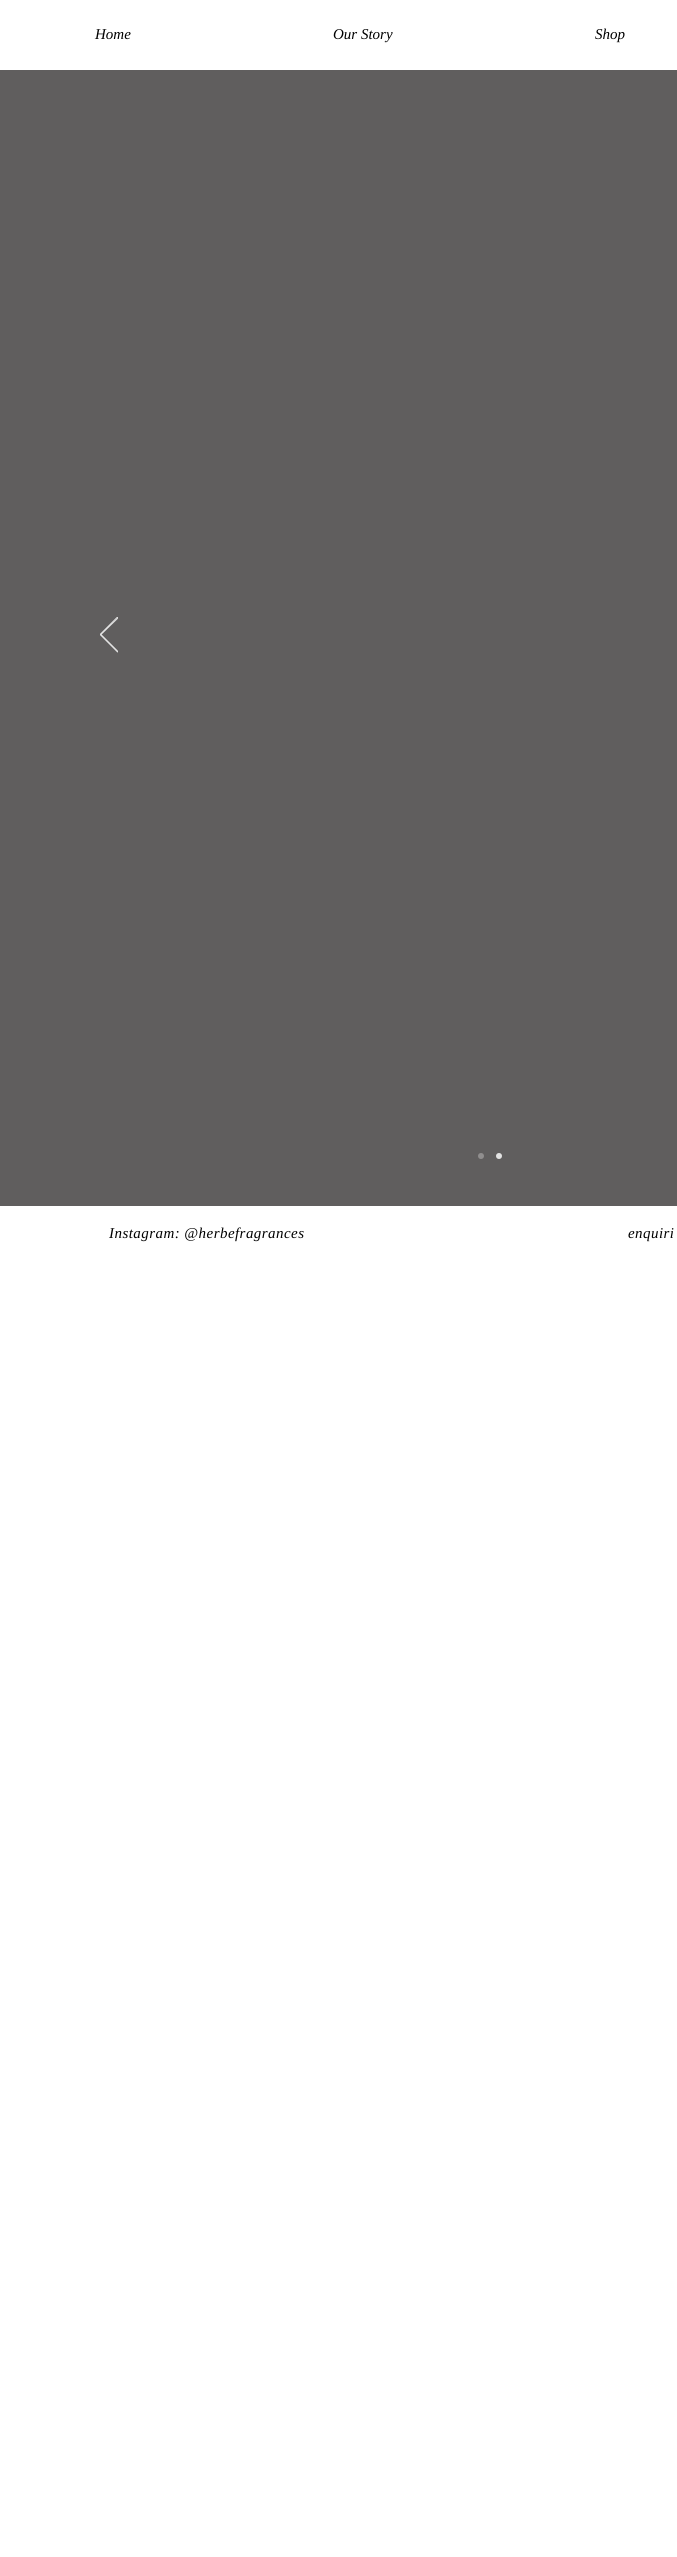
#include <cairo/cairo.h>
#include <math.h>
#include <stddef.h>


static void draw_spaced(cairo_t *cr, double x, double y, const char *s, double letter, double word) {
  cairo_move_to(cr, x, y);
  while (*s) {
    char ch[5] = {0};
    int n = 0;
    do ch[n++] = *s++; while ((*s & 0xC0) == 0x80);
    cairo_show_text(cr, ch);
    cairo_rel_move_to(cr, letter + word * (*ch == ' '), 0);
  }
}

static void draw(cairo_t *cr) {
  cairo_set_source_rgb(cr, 1, 1, 1);
  cairo_paint(cr);
  cairo_set_source_rgb(cr, 96 / 255.0, 94 / 255.0, 94 / 255.0);
  cairo_rectangle(cr, 0, 70, 677, 1136);
  cairo_fill(cr);
  cairo_save(cr);
  cairo_rectangle(cr, 100, 617, 18, 36);
  cairo_clip(cr);
  cairo_new_path(cr);
  cairo_move_to(cr, 117.5, 652);
  cairo_line_to(cr, 100, 634.5);
  cairo_line_to(cr, 117.5, 617);
  cairo_line_to(cr, 118, 618);
  cairo_line_to(cr, 101, 634.5);
  cairo_line_to(cr, 118, 651.5);
  cairo_close_path(cr);
  cairo_set_source_rgb(cr, 227 / 255.0, 227 / 255.0, 227 / 255.0);
  cairo_set_line_width(cr, 0.9);
  cairo_stroke(cr);
  cairo_restore(cr);
  cairo_set_source_rgb(cr, 144 / 255.0, 142 / 255.0, 142 / 255.0);
  cairo_arc(cr, 481, 1156, 3, 0, 2 * M_PI);
  cairo_fill(cr);
  cairo_set_source_rgb(cr, 227 / 255.0, 227 / 255.0, 227 / 255.0);
  cairo_arc(cr, 499, 1156, 3, 0, 2 * M_PI);
  cairo_fill(cr);
  cairo_select_font_face(cr, "Liberation Serif", CAIRO_FONT_SLANT_ITALIC, CAIRO_FONT_WEIGHT_NORMAL);
  cairo_set_font_size(cr, 15);
  cairo_set_source_rgb(cr, 0, 0, 0);
  cairo_move_to(cr, 95, 39);
  cairo_show_text(cr, "Home");
  cairo_move_to(cr, 333, 39);
  cairo_show_text(cr, "Our Story");
  cairo_move_to(cr, 595, 39);
  cairo_show_text(cr, "Shop");
  draw_spaced(cr, 109, 1238, "Instagram: @herbefragrances", 0.45, 0);
  draw_spaced(cr, 628, 1238, "enquiri", 0.45, 0);
}

int main(void) {
  cairo_surface_t *surface = cairo_image_surface_create(CAIRO_FORMAT_RGB24, 677, 2557);
  cairo_t *cr = cairo_create(surface);
  cairo_font_options_t *options = cairo_font_options_create();
  cairo_font_options_set_hint_metrics(options, CAIRO_HINT_METRICS_OFF);
  cairo_font_options_set_hint_style(options, CAIRO_HINT_STYLE_NONE);
  cairo_set_font_options(cr, options);
  cairo_set_miter_limit(cr, 4);
  draw(cr);
  cairo_surface_write_to_png(surface, "out.png");
  cairo_font_options_destroy(options);
  cairo_destroy(cr);
  cairo_surface_destroy(surface);
  return 0;
}
